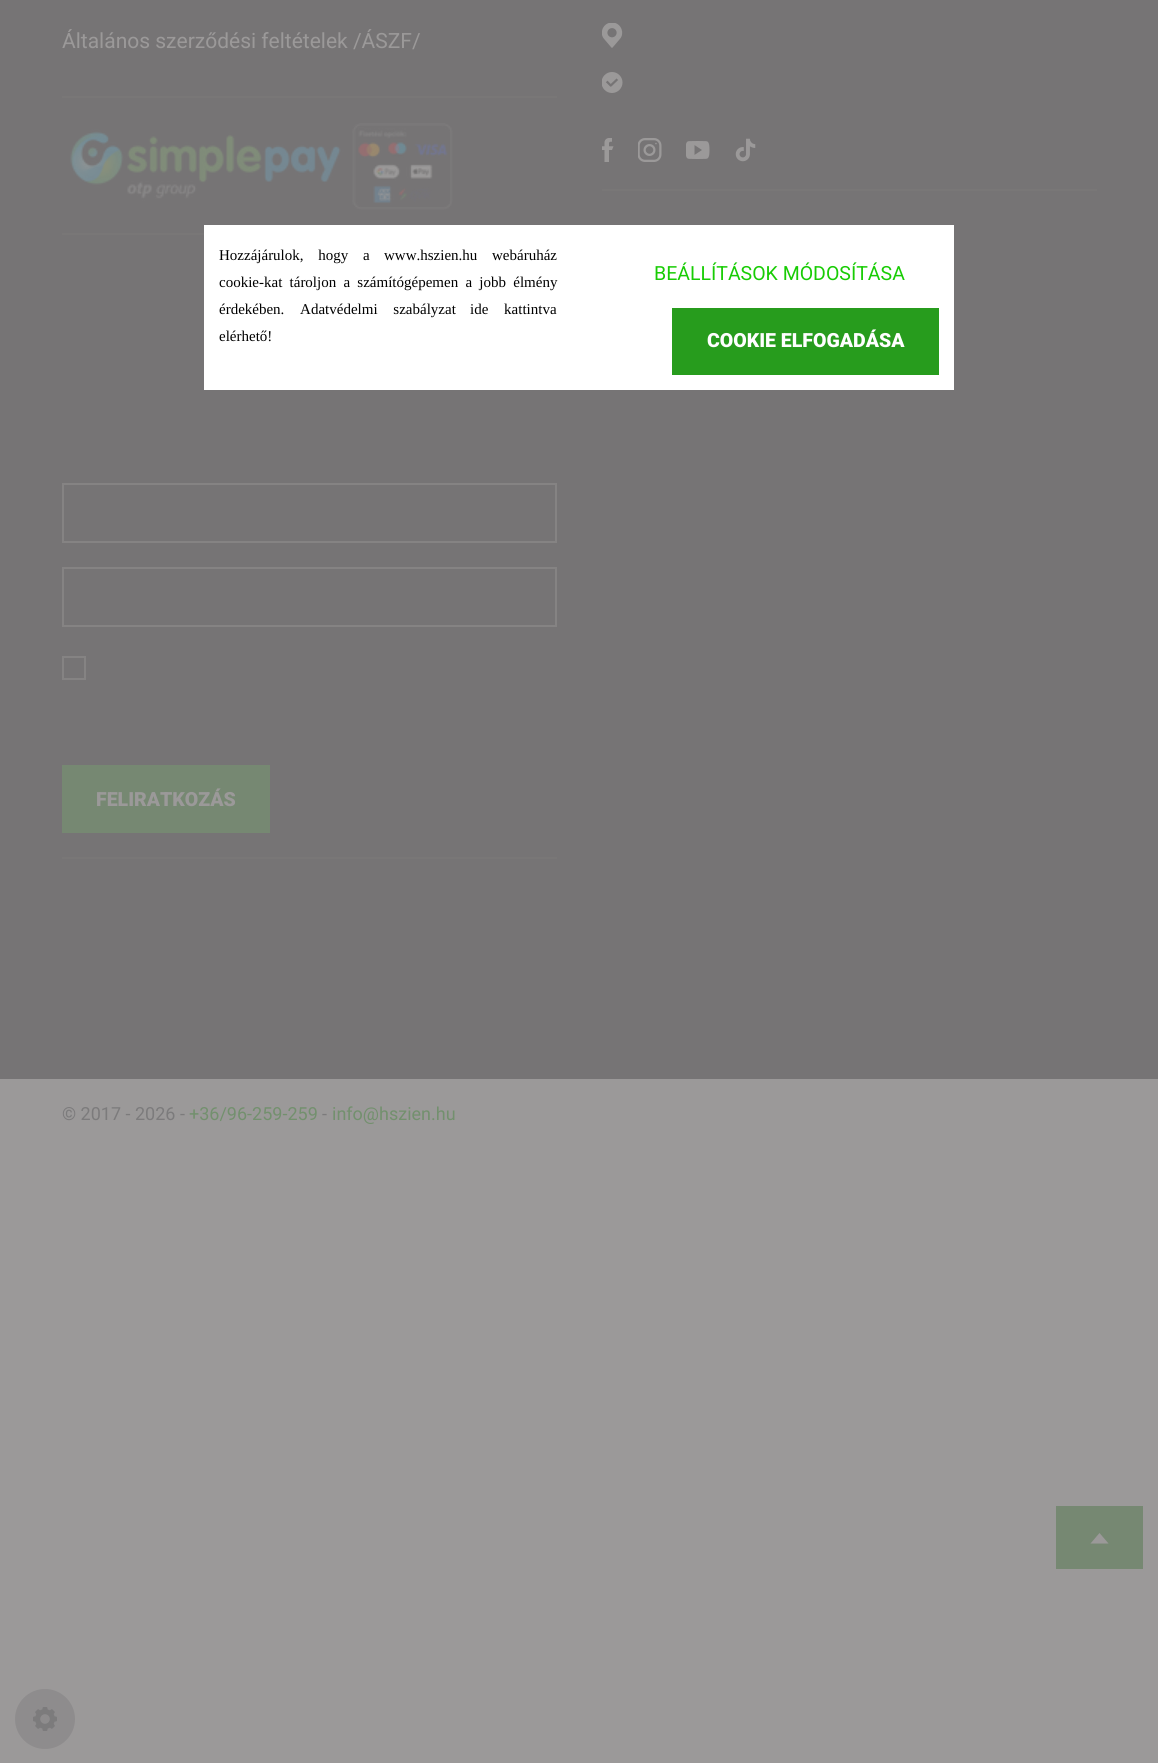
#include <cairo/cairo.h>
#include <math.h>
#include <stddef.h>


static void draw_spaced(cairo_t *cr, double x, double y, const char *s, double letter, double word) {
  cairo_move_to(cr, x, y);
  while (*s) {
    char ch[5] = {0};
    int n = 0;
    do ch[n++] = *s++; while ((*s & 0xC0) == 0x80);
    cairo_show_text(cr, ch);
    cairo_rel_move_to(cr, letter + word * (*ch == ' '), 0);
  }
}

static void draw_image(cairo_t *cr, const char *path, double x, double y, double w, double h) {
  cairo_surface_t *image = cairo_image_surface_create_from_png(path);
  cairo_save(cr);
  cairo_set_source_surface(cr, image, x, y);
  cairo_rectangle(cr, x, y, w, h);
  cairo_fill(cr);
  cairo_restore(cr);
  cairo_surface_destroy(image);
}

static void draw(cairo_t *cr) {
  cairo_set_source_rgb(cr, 155 / 255.0, 153 / 255.0, 153 / 255.0);
  cairo_paint(cr);
  cairo_set_source_rgb(cr, 118 / 255.0, 116 / 255.0, 117 / 255.0);
  cairo_rectangle(cr, 0, 0, 1158, 1079);
  cairo_fill(cr);
  cairo_set_source_rgb(cr, 121 / 255.0, 119 / 255.0, 119 / 255.0);
  cairo_rectangle(cr, 62, 96, 495, 2);
  cairo_fill(cr);
  cairo_rectangle(cr, 62, 233, 142, 2);
  cairo_fill(cr);
  draw_image(cr, "images/1.png", 70, 123, 383, 87);
  cairo_rectangle(cr, 602, 189, 495, 2);
  cairo_fill(cr);
  draw_image(cr, "images/2.png", 602, 23, 21, 25);
  draw_image(cr, "images/3.png", 602, 72, 21, 21);
  draw_image(cr, "images/4.png", 602, 138, 12, 24);
  draw_image(cr, "images/5.png", 638, 138, 24, 24);
  draw_image(cr, "images/6.png", 686, 141, 24, 18);
  draw_image(cr, "images/7.png", 735, 138, 21, 24);
  cairo_rectangle(cr, 62, 857, 495, 2);
  cairo_fill(cr);
  cairo_rectangle(cr, 63, 484, 493, 58);
  cairo_set_source_rgb(cr, 133 / 255.0, 131 / 255.0, 131 / 255.0);
  cairo_stroke(cr);
  cairo_rectangle(cr, 63, 568, 493, 58);
  cairo_stroke(cr);
  cairo_rectangle(cr, 63, 657, 22, 22);
  cairo_stroke(cr);
  cairo_set_source_rgb(cr, 118 / 255.0, 136 / 255.0, 114 / 255.0);
  cairo_rectangle(cr, 62, 765, 208, 68);
  cairo_fill(cr);
  cairo_rectangle(cr, 1056, 1506, 87, 63);
  cairo_fill(cr);
  cairo_set_source_rgb(cr, 155 / 255.0, 153 / 255.0, 153 / 255.0);
  cairo_new_path(cr);
  cairo_move_to(cr, 1108.5, 1543.5);
  cairo_line_to(cr, 1099.5, 1533);
  cairo_line_to(cr, 1090.5, 1543.5);
  cairo_close_path(cr);
  cairo_fill(cr);
  cairo_set_source_rgb(cr, 1, 1, 1);
  cairo_rectangle(cr, 204, 225, 750, 165);
  cairo_fill(cr);
  cairo_set_source_rgb(cr, 39 / 255.0, 156 / 255.0, 29 / 255.0);
  cairo_rectangle(cr, 672, 308, 267, 67);
  cairo_fill(cr);
  cairo_set_source_rgb(cr, 142 / 255.0, 140 / 255.0, 141 / 255.0);
  cairo_arc(cr, 45, 1719, 30, 0, 2 * M_PI);
  cairo_fill(cr);
  draw_image(cr, "images/8.png", 33, 1707, 24, 24);
  cairo_select_font_face(cr, "Roboto", CAIRO_FONT_SLANT_NORMAL, CAIRO_FONT_WEIGHT_NORMAL);
  cairo_set_font_size(cr, 21);
  cairo_set_source_rgb(cr, 155 / 255.0, 153 / 255.0, 153 / 255.0);
  cairo_move_to(cr, 62, 48);
  cairo_show_text(cr, "Általános szerződési feltételek /ÁSZF/");
  cairo_select_font_face(cr, "Roboto Black", CAIRO_FONT_SLANT_NORMAL, CAIRO_FONT_WEIGHT_NORMAL);
  cairo_set_font_size(cr, 19.5);
  cairo_move_to(cr, 96, 806);
  cairo_show_text(cr, "FELIRATKOZÁS");
  cairo_select_font_face(cr, "Roboto", CAIRO_FONT_SLANT_NORMAL, CAIRO_FONT_WEIGHT_NORMAL);
  cairo_set_font_size(cr, 18);
  cairo_set_source_rgb(cr, 124 / 255.0, 123 / 255.0, 124 / 255.0);
  cairo_move_to(cr, 62, 1120);
  cairo_show_text(cr, "© 2017 - 2026 -");
  cairo_set_source_rgb(cr, 115 / 255.0, 144 / 255.0, 110 / 255.0);
  cairo_move_to(cr, 189, 1120);
  cairo_show_text(cr, "+36/96-259-259");
  cairo_set_source_rgb(cr, 124 / 255.0, 123 / 255.0, 124 / 255.0);
  cairo_move_to(cr, 322, 1120);
  cairo_show_text(cr, "-");
  cairo_set_source_rgb(cr, 115 / 255.0, 144 / 255.0, 110 / 255.0);
  cairo_move_to(cr, 332, 1120);
  cairo_show_text(cr, "info@hszien.hu");
  cairo_select_font_face(cr, "Liberation Serif", CAIRO_FONT_SLANT_NORMAL, CAIRO_FONT_WEIGHT_NORMAL);
  cairo_set_font_size(cr, 15);
  cairo_set_source_rgb(cr, 0, 0, 0);
  draw_spaced(cr, 219, 260, "Hozzájárulok, hogy a", 0, 11);
  cairo_move_to(cr, 384, 260);
  cairo_show_text(cr, "www.hszien.hu");
  cairo_move_to(cr, 492, 260);
  cairo_show_text(cr, "webáruház");
  draw_spaced(cr, 219, 287, "cookie-kat tároljon a számítógépemen a jobb élmény", 0, 3.5);
  draw_spaced(cr, 219, 314, "érdekében. Adatvédelmi szabályzat", 0, 12);
  draw_spaced(cr, 470, 314, "ide kattintva", 0, 12);
  cairo_move_to(cr, 219, 341);
  cairo_show_text(cr, "elérhető!");
  cairo_select_font_face(cr, "Roboto", CAIRO_FONT_SLANT_NORMAL, CAIRO_FONT_WEIGHT_NORMAL);
  cairo_set_font_size(cr, 19.5);
  cairo_set_source_rgb(cr, 24 / 255.0, 204 / 255.0, 4 / 255.0);
  cairo_move_to(cr, 654, 280);
  cairo_show_text(cr, "BEÁLLÍTÁSOK MÓDOSÍTÁSA");
  cairo_select_font_face(cr, "Roboto Black", CAIRO_FONT_SLANT_NORMAL, CAIRO_FONT_WEIGHT_NORMAL);
  cairo_set_source_rgb(cr, 1, 1, 1);
  cairo_move_to(cr, 707, 347);
  cairo_show_text(cr, "COOKIE ELFOGADÁSA");
}

int main(void) {
  cairo_surface_t *surface = cairo_image_surface_create(CAIRO_FORMAT_RGB24, 1158, 1763);
  cairo_t *cr = cairo_create(surface);
  cairo_font_options_t *options = cairo_font_options_create();
  cairo_font_options_set_hint_metrics(options, CAIRO_HINT_METRICS_OFF);
  cairo_font_options_set_hint_style(options, CAIRO_HINT_STYLE_NONE);
  cairo_set_font_options(cr, options);
  cairo_set_miter_limit(cr, 4);
  draw(cr);
  cairo_surface_write_to_png(surface, "out.png");
  cairo_font_options_destroy(options);
  cairo_destroy(cr);
  cairo_surface_destroy(surface);
  return 0;
}
